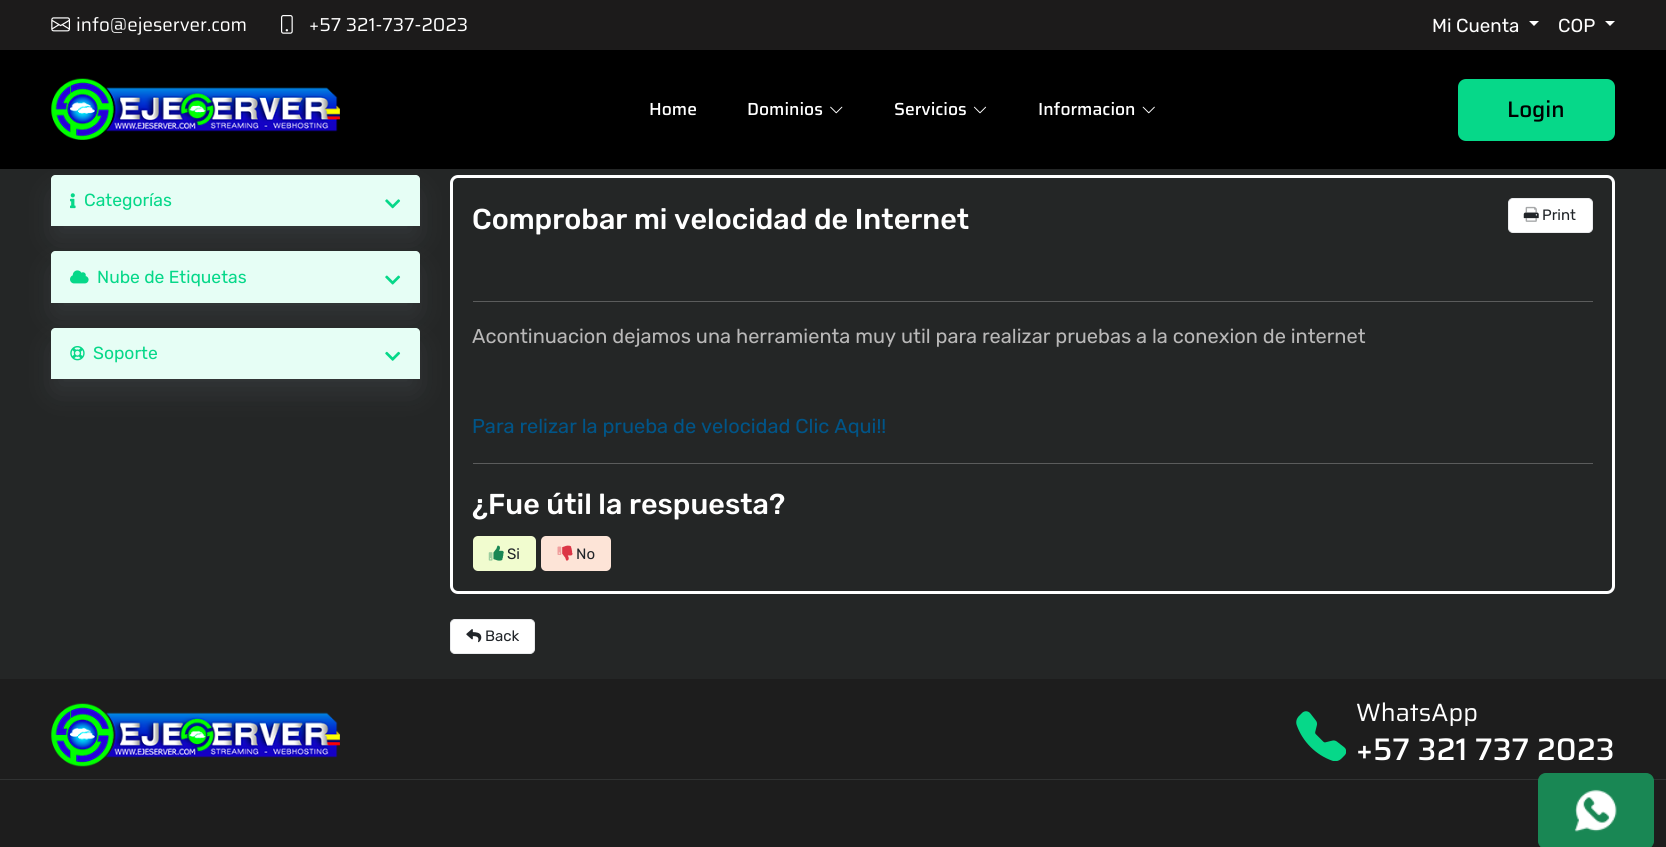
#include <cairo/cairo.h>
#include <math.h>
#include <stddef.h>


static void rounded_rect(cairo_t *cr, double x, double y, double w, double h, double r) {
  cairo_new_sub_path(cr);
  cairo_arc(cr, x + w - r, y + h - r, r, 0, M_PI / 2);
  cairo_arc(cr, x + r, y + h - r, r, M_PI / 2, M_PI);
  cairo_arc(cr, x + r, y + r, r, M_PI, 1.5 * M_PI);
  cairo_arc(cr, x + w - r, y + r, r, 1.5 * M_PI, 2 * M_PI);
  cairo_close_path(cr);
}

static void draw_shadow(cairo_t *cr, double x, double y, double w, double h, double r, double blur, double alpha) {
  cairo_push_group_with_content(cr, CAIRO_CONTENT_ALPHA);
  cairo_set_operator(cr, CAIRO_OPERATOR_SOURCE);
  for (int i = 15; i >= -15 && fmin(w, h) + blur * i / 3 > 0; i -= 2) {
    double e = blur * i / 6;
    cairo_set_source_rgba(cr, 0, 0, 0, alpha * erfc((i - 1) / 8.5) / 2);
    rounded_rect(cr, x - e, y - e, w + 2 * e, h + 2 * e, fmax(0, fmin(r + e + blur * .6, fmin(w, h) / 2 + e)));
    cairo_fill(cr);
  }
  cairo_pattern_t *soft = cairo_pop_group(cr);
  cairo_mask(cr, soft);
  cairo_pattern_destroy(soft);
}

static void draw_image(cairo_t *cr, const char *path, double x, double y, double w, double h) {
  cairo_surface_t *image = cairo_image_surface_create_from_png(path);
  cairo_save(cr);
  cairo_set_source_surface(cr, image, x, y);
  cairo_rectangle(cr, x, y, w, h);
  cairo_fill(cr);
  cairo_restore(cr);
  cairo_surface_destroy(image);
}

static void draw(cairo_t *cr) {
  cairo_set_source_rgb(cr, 36 / 255.0, 38 / 255.0, 38 / 255.0);
  cairo_paint(cr);
  cairo_set_source_rgb(cr, 28 / 255.0, 27 / 255.0, 27 / 255.0);
  cairo_rectangle(cr, 0, 0, 1666, 50);
  cairo_fill(cr);
  draw_image(cr, "images/1.png", 51, 17, 19, 15);
  draw_image(cr, "images/2.png", 281, 15, 12, 19);
  cairo_set_source_rgb(cr, 1, 1, 1);
  cairo_new_path(cr);
  cairo_move_to(cr, 1529, 21);
  cairo_line_to(cr, 1539, 21);
  cairo_line_to(cr, 1534, 26);
  cairo_close_path(cr);
  cairo_fill(cr);
  cairo_new_path(cr);
  cairo_move_to(cr, 1605, 21);
  cairo_line_to(cr, 1615, 21);
  cairo_line_to(cr, 1610, 26);
  cairo_close_path(cr);
  cairo_fill(cr);
  cairo_set_source_rgb(cr, 145 / 255.0, 158 / 255.0, 171 / 255.0);
  draw_shadow(cr, 56, 195, 359, 41, 0, 15, 0.16);
  cairo_set_source_rgb(cr, 0, 0, 0);
  cairo_rectangle(cr, 0, 50, 1666, 119);
  cairo_fill(cr);
  draw_image(cr, "images/3.png", 51, 78, 289, 62);
  draw_image(cr, "images/4.png", 830, 106, 13, 8);
  draw_image(cr, "images/5.png", 973, 106, 14, 8);
  draw_image(cr, "images/6.png", 1142, 106, 13, 8);
  cairo_set_source_rgb(cr, 6 / 255.0, 216 / 255.0, 137 / 255.0);
  rounded_rect(cr, 1458, 79, 157, 62, 8);
  cairo_fill(cr);
  cairo_set_source_rgb(cr, 230 / 255.0, 254 / 255.0, 245 / 255.0);
  cairo_new_path(cr);
  cairo_move_to(cr, 55, 175);
  cairo_line_to(cr, 416, 175);
  cairo_curve_to(cr, 418, 175, 420, 177, 420, 179);
  cairo_line_to(cr, 420, 226);
  cairo_line_to(cr, 51, 226);
  cairo_line_to(cr, 51, 179);
  cairo_curve_to(cr, 51, 177, 53, 175, 55, 175);
  cairo_close_path(cr);
  cairo_fill(cr);
  draw_image(cr, "images/7.png", 70, 193, 6, 16);
  draw_image(cr, "images/8.png", 385, 199, 16, 10);
  cairo_set_source_rgb(cr, 145 / 255.0, 158 / 255.0, 171 / 255.0);
  draw_shadow(cr, 56, 271, 359, 42, 0, 15, 0.16);
  cairo_set_source_rgb(cr, 230 / 255.0, 254 / 255.0, 245 / 255.0);
  cairo_new_path(cr);
  cairo_move_to(cr, 55, 251);
  cairo_line_to(cr, 416, 251);
  cairo_curve_to(cr, 418, 251, 420, 253, 420, 255);
  cairo_line_to(cr, 420, 303);
  cairo_line_to(cr, 51, 303);
  cairo_line_to(cr, 51, 255);
  cairo_curve_to(cr, 51, 253, 53, 251, 55, 251);
  cairo_close_path(cr);
  cairo_fill(cr);
  draw_image(cr, "images/9.png", 70, 270, 19, 14);
  draw_image(cr, "images/10.png", 385, 275, 16, 10);
  cairo_set_source_rgb(cr, 145 / 255.0, 158 / 255.0, 171 / 255.0);
  draw_shadow(cr, 56, 348, 359, 41, 0, 15, 0.16);
  cairo_set_source_rgb(cr, 230 / 255.0, 254 / 255.0, 245 / 255.0);
  cairo_new_path(cr);
  cairo_move_to(cr, 55, 328);
  cairo_line_to(cr, 416, 328);
  cairo_curve_to(cr, 418, 328, 420, 330, 420, 332);
  cairo_line_to(cr, 420, 379);
  cairo_line_to(cr, 51, 379);
  cairo_line_to(cr, 51, 332);
  cairo_curve_to(cr, 51, 330, 53, 328, 55, 328);
  cairo_close_path(cr);
  cairo_fill(cr);
  draw_image(cr, "images/11.png", 70, 346, 15, 15);
  draw_image(cr, "images/12.png", 385, 351, 16, 10);
  rounded_rect(cr, 451.5, 176.5, 1162, 416, 6.5);
  cairo_set_source_rgb(cr, 1, 1, 1);
  cairo_set_line_width(cr, 3);
  cairo_stroke(cr);
  rounded_rect(cr, 1508.5, 198.5, 84, 34, 4.5);
  cairo_fill_preserve(cr);
  cairo_set_source_rgb(cr, 233 / 255.0, 234 / 255.0, 236 / 255.0);
  cairo_set_line_width(cr, 1);
  cairo_stroke(cr);
  draw_image(cr, "images/14.png", 1523, 212, 16, 7);
  draw_image(cr, "images/13.png", 1525, 206, 12, 16);
  cairo_set_source_rgb(cr, 91 / 255.0, 92 / 255.0, 92 / 255.0);
  cairo_rectangle(cr, 473, 301, 1120, 1);
  cairo_fill(cr);
  cairo_rectangle(cr, 473, 463, 1120, 1);
  cairo_fill(cr);
  cairo_set_source_rgb(cr, 241 / 255.0, 252 / 255.0, 207 / 255.0);
  rounded_rect(cr, 473, 536, 63, 35, 5);
  cairo_fill(cr);
  draw_image(cr, "images/15.png", 488, 552, 5, 9);
  draw_image(cr, "images/16.png", 493, 545, 11, 16);
  cairo_set_source_rgb(cr, 253 / 255.0, 228 / 255.0, 215 / 255.0);
  rounded_rect(cr, 541, 536, 70, 35, 5);
  cairo_fill(cr);
  draw_image(cr, "images/17.png", 557, 546, 5, 9);
  draw_image(cr, "images/18.png", 562, 545, 11, 16);
  cairo_set_source_rgb(cr, 1, 1, 1);
  rounded_rect(cr, 450.5, 619.5, 84, 34, 4.5);
  cairo_fill_preserve(cr);
  cairo_set_source_rgb(cr, 233 / 255.0, 234 / 255.0, 236 / 255.0);
  cairo_stroke(cr);
  draw_image(cr, "images/19.png", 466, 629, 16, 14);
  cairo_set_source_rgb(cr, 29 / 255.0, 29 / 255.0, 29 / 255.0);
  cairo_rectangle(cr, 0, 679, 1666, 168);
  cairo_fill(cr);
  cairo_set_source_rgb(cr, 48 / 255.0, 50 / 255.0, 50 / 255.0);
  cairo_rectangle(cr, 0, 779, 1666, 1);
  cairo_fill(cr);
  draw_image(cr, "images/20.png", 51, 703, 289, 64);
  draw_image(cr, "images/21.png", 1296, 711, 50, 50);
  cairo_set_source_rgb(cr, 25 / 255.0, 135 / 255.0, 84 / 255.0);
  rounded_rect(cr, 1538.5, 773.5, 115, 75, 7.5);
  cairo_fill_preserve(cr);
  cairo_stroke(cr);
  draw_image(cr, "images/22.png", 1574, 789, 43, 43);
  cairo_select_font_face(cr, "Saira", CAIRO_FONT_SLANT_NORMAL, CAIRO_FONT_WEIGHT_NORMAL);
  cairo_set_font_size(cr, 18.75);
  cairo_set_source_rgb(cr, 1, 1, 1);
  cairo_move_to(cr, 76, 31);
  cairo_show_text(cr, "info@ejeserver.com");
  cairo_move_to(cr, 309, 31);
  cairo_show_text(cr, "+57 321-737-2023");
  cairo_select_font_face(cr, "Rubik", CAIRO_FONT_SLANT_NORMAL, CAIRO_FONT_WEIGHT_NORMAL);
  cairo_move_to(cr, 1432, 32);
  cairo_show_text(cr, "Mi Cuenta");
  cairo_move_to(cr, 1558, 32);
  cairo_show_text(cr, "COP");
  cairo_select_font_face(cr, "Saira Medium", CAIRO_FONT_SLANT_NORMAL, CAIRO_FONT_WEIGHT_NORMAL);
  cairo_set_font_size(cr, 17.5);
  cairo_move_to(cr, 649, 115);
  cairo_show_text(cr, "Home");
  cairo_move_to(cr, 747, 115);
  cairo_show_text(cr, "Dominios");
  cairo_move_to(cr, 894, 115);
  cairo_show_text(cr, "Servicios");
  cairo_move_to(cr, 1038, 115);
  cairo_show_text(cr, "Informacion");
  cairo_set_font_size(cr, 22.5);
  cairo_set_source_rgb(cr, 0, 0, 0);
  cairo_move_to(cr, 1507, 117);
  cairo_show_text(cr, "Login");
  cairo_select_font_face(cr, "Rubik", CAIRO_FONT_SLANT_NORMAL, CAIRO_FONT_WEIGHT_NORMAL);
  cairo_set_font_size(cr, 17.5);
  cairo_set_source_rgb(cr, 6 / 255.0, 216 / 255.0, 137 / 255.0);
  cairo_move_to(cr, 84, 206);
  cairo_show_text(cr, "Categorías");
  cairo_move_to(cr, 97, 283);
  cairo_show_text(cr, "Nube de Etiquetas");
  cairo_move_to(cr, 93, 359);
  cairo_show_text(cr, "Soporte");
  cairo_select_font_face(cr, "Rubik Medium", CAIRO_FONT_SLANT_NORMAL, CAIRO_FONT_WEIGHT_NORMAL);
  cairo_set_font_size(cr, 28.75);
  cairo_set_source_rgb(cr, 1, 1, 1);
  cairo_move_to(cr, 472, 229);
  cairo_show_text(cr, "Comprobar mi velocidad de Internet");
  cairo_select_font_face(cr, "Rubik", CAIRO_FONT_SLANT_NORMAL, CAIRO_FONT_WEIGHT_NORMAL);
  cairo_set_font_size(cr, 15);
  cairo_set_source_rgb(cr, 33 / 255.0, 37 / 255.0, 41 / 255.0);
  cairo_move_to(cr, 1542, 220);
  cairo_show_text(cr, "Print");
  cairo_set_font_size(cr, 20);
  cairo_set_source_rgb(cr, 185 / 255.0, 184 / 255.0, 184 / 255.0);
  cairo_move_to(cr, 472, 343);
  cairo_show_text(cr, "Acontinuacion dejamos una herramienta muy util para realizar pruebas a la conexion de internet");
  cairo_set_source_rgb(cr, 0, 85 / 255.0, 136 / 255.0);
  cairo_move_to(cr, 472, 433);
  cairo_show_text(cr, "Para relizar la prueba de velocidad Clic Aqui!!");
  cairo_select_font_face(cr, "Rubik Medium", CAIRO_FONT_SLANT_NORMAL, CAIRO_FONT_WEIGHT_NORMAL);
  cairo_set_font_size(cr, 28.75);
  cairo_set_source_rgb(cr, 1, 1, 1);
  cairo_move_to(cr, 472, 514);
  cairo_show_text(cr, "¿Fue útil la respuesta?");
  cairo_select_font_face(cr, "Rubik", CAIRO_FONT_SLANT_NORMAL, CAIRO_FONT_WEIGHT_NORMAL);
  cairo_set_font_size(cr, 15);
  cairo_set_source_rgb(cr, 33 / 255.0, 37 / 255.0, 41 / 255.0);
  cairo_move_to(cr, 507, 559);
  cairo_show_text(cr, "Si");
  cairo_move_to(cr, 576, 559);
  cairo_show_text(cr, "No");
  cairo_move_to(cr, 485, 641);
  cairo_show_text(cr, "Back");
  cairo_select_font_face(cr, "Saira", CAIRO_FONT_SLANT_NORMAL, CAIRO_FONT_WEIGHT_NORMAL);
  cairo_set_font_size(cr, 25);
  cairo_set_source_rgb(cr, 1, 1, 1);
  cairo_move_to(cr, 1356, 721);
  cairo_show_text(cr, "WhatsApp");
  cairo_select_font_face(cr, "Saira Medium", CAIRO_FONT_SLANT_NORMAL, CAIRO_FONT_WEIGHT_NORMAL);
  cairo_set_font_size(cr, 31.25);
  cairo_move_to(cr, 1356, 760);
  cairo_show_text(cr, "+57 321 737 2023");
}

int main(void) {
  cairo_surface_t *surface = cairo_image_surface_create(CAIRO_FORMAT_RGB24, 1666, 847);
  cairo_t *cr = cairo_create(surface);
  cairo_font_options_t *options = cairo_font_options_create();
  cairo_font_options_set_hint_metrics(options, CAIRO_HINT_METRICS_OFF);
  cairo_font_options_set_hint_style(options, CAIRO_HINT_STYLE_NONE);
  cairo_set_font_options(cr, options);
  cairo_set_miter_limit(cr, 4);
  draw(cr);
  cairo_surface_write_to_png(surface, "out.png");
  cairo_font_options_destroy(options);
  cairo_destroy(cr);
  cairo_surface_destroy(surface);
  return 0;
}
